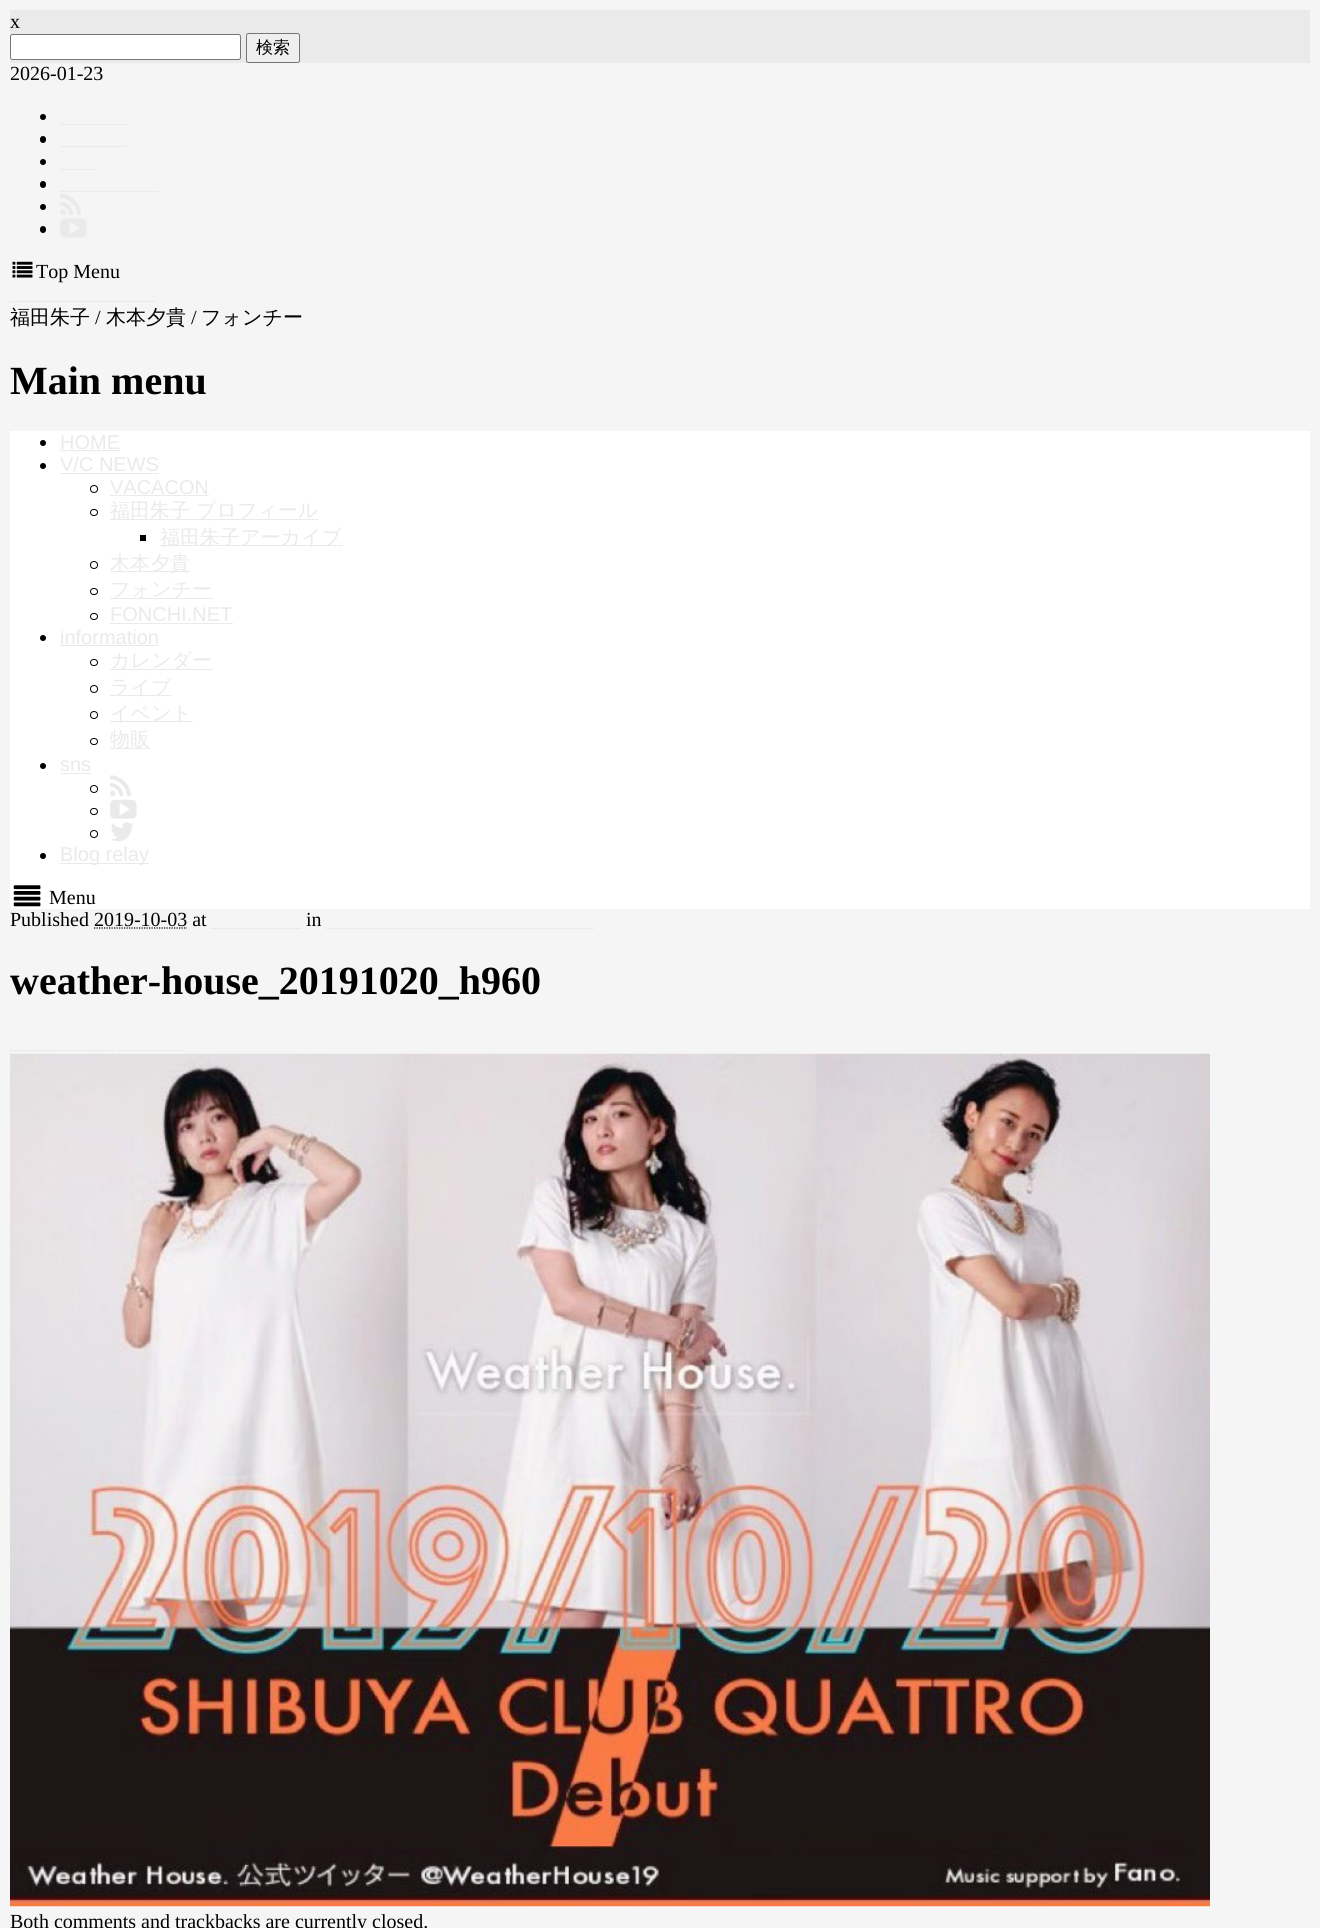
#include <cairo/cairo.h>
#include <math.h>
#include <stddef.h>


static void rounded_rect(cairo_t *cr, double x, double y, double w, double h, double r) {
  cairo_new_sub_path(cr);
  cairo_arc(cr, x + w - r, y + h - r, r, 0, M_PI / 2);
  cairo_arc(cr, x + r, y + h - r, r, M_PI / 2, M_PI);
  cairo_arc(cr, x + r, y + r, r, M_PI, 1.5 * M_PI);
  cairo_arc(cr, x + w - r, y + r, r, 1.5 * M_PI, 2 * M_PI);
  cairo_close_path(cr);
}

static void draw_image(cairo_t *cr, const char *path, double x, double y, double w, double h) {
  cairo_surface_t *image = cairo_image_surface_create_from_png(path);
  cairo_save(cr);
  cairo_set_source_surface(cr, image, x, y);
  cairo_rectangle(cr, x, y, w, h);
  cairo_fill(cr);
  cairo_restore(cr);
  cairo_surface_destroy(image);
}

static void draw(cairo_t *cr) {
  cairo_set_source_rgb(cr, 245 / 255.0, 245 / 255.0, 245 / 255.0);
  cairo_paint(cr);
  cairo_set_source_rgb(cr, 234 / 255.0, 234 / 255.0, 234 / 255.0);
  cairo_rectangle(cr, 10, 10, 1300, 53);
  cairo_fill(cr);
  cairo_set_source_rgb(cr, 1, 1, 1);
  rounded_rect(cr, 10.5, 34.5, 230, 25, 2);
  cairo_fill_preserve(cr);
  cairo_set_source_rgb(cr, 118 / 255.0, 118 / 255.0, 118 / 255.0);
  cairo_set_line_width(cr, 1);
  cairo_stroke(cr);
  cairo_set_source_rgb(cr, 239 / 255.0, 239 / 255.0, 239 / 255.0);
  rounded_rect(cr, 246.5, 33.5, 53, 29, 2);
  cairo_fill_preserve(cr);
  cairo_set_source_rgb(cr, 118 / 255.0, 118 / 255.0, 118 / 255.0);
  cairo_stroke(cr);
  cairo_set_source_rgb(cr, 0, 0, 0);
  cairo_arc(cr, 43, 117, 3, 0, 2 * M_PI);
  cairo_fill(cr);
  cairo_set_source_rgb(cr, 234 / 255.0, 234 / 255.0, 234 / 255.0);
  cairo_rectangle(cr, 60, 124, 68, 1);
  cairo_fill(cr);
  cairo_set_source_rgb(cr, 0, 0, 0);
  rounded_rect(cr, 40, 136, 6, 7, 3);
  cairo_fill(cr);
  cairo_set_source_rgb(cr, 234 / 255.0, 234 / 255.0, 234 / 255.0);
  cairo_rectangle(cr, 60, 146, 66, 1);
  cairo_fill(cr);
  cairo_set_source_rgb(cr, 0, 0, 0);
  cairo_arc(cr, 43, 162, 3, 0, 2 * M_PI);
  cairo_fill(cr);
  cairo_set_source_rgb(cr, 234 / 255.0, 234 / 255.0, 234 / 255.0);
  cairo_rectangle(cr, 60, 169, 38, 1);
  cairo_fill(cr);
  cairo_set_source_rgb(cr, 0, 0, 0);
  rounded_rect(cr, 40, 181, 6, 7, 3);
  cairo_fill(cr);
  cairo_set_source_rgb(cr, 234 / 255.0, 234 / 255.0, 234 / 255.0);
  cairo_rectangle(cr, 60, 191, 99, 1);
  cairo_fill(cr);
  cairo_set_source_rgb(cr, 0, 0, 0);
  cairo_arc(cr, 43, 207, 3, 0, 2 * M_PI);
  cairo_fill(cr);
  draw_image(cr, "images/1.png", 60, 194, 21, 21);
  rounded_rect(cr, 40, 226, 6, 7, 3);
  cairo_fill(cr);
  draw_image(cr, "images/2.png", 60, 218, 27, 20);
  draw_image(cr, "images/3.png", 12, 261, 21, 17);
  cairo_set_source_rgb(cr, 234 / 255.0, 234 / 255.0, 234 / 255.0);
  cairo_rectangle(cr, 10, 301, 146, 1);
  cairo_fill(cr);
  cairo_set_source_rgb(cr, 1, 1, 1);
  cairo_rectangle(cr, 10, 431, 1300, 478);
  cairo_fill(cr);
  cairo_set_source_rgb(cr, 0, 0, 0);
  cairo_arc(cr, 43, 443, 3, 0, 2 * M_PI);
  cairo_fill(cr);
  cairo_set_source_rgb(cr, 234 / 255.0, 234 / 255.0, 234 / 255.0);
  cairo_rectangle(cr, 60, 450, 60, 1);
  cairo_fill(cr);
  cairo_set_source_rgb(cr, 0, 0, 0);
  cairo_arc(cr, 43, 466, 3, 0, 2 * M_PI);
  cairo_fill(cr);
  cairo_set_source_rgb(cr, 234 / 255.0, 234 / 255.0, 234 / 255.0);
  cairo_rectangle(cr, 60, 473, 99, 1);
  cairo_fill(cr);
  cairo_arc(cr, 94, 489, 3.5, 0, 2 * M_PI);
  cairo_set_source_rgb(cr, 0, 0, 0);
  cairo_stroke(cr);
  cairo_set_source_rgb(cr, 234 / 255.0, 234 / 255.0, 234 / 255.0);
  cairo_rectangle(cr, 110, 495, 99, 1);
  cairo_fill(cr);
  rounded_rect(cr, 90.5, 509.5, 7, 6, 3);
  cairo_set_source_rgb(cr, 0, 0, 0);
  cairo_stroke(cr);
  cairo_set_source_rgb(cr, 234 / 255.0, 234 / 255.0, 234 / 255.0);
  cairo_rectangle(cr, 110, 519, 208, 1);
  cairo_fill(cr);
  cairo_set_source_rgb(cr, 0, 0, 0);
  cairo_rectangle(cr, 140, 535, 6, 6);
  cairo_fill(cr);
  cairo_set_source_rgb(cr, 234 / 255.0, 234 / 255.0, 234 / 255.0);
  cairo_rectangle(cr, 160, 545, 183, 1);
  cairo_fill(cr);
  cairo_arc(cr, 94, 565, 3.5, 0, 2 * M_PI);
  cairo_set_source_rgb(cr, 0, 0, 0);
  cairo_stroke(cr);
  cairo_set_source_rgb(cr, 234 / 255.0, 234 / 255.0, 234 / 255.0);
  cairo_rectangle(cr, 110, 571, 80, 1);
  cairo_fill(cr);
  rounded_rect(cr, 90.5, 588.5, 7, 6, 3);
  cairo_set_source_rgb(cr, 0, 0, 0);
  cairo_stroke(cr);
  cairo_set_source_rgb(cr, 234 / 255.0, 234 / 255.0, 234 / 255.0);
  cairo_rectangle(cr, 110, 598, 103, 1);
  cairo_fill(cr);
  rounded_rect(cr, 90.5, 613.5, 7, 6, 3);
  cairo_set_source_rgb(cr, 0, 0, 0);
  cairo_stroke(cr);
  cairo_set_source_rgb(cr, 234 / 255.0, 234 / 255.0, 234 / 255.0);
  cairo_rectangle(cr, 110, 623, 123, 1);
  cairo_fill(cr);
  cairo_set_source_rgb(cr, 0, 0, 0);
  cairo_arc(cr, 43, 638, 3, 0, 2 * M_PI);
  cairo_fill(cr);
  cairo_set_source_rgb(cr, 234 / 255.0, 234 / 255.0, 234 / 255.0);
  cairo_rectangle(cr, 60, 645, 99, 1);
  cairo_fill(cr);
  rounded_rect(cr, 90.5, 659.5, 7, 6, 3);
  cairo_set_source_rgb(cr, 0, 0, 0);
  cairo_stroke(cr);
  cairo_set_source_rgb(cr, 234 / 255.0, 234 / 255.0, 234 / 255.0);
  cairo_rectangle(cr, 110, 669, 103, 1);
  cairo_fill(cr);
  cairo_arc(cr, 94, 689, 3.5, 0, 2 * M_PI);
  cairo_set_source_rgb(cr, 0, 0, 0);
  cairo_stroke(cr);
  cairo_set_source_rgb(cr, 234 / 255.0, 234 / 255.0, 234 / 255.0);
  cairo_rectangle(cr, 110, 695, 61, 1);
  cairo_fill(cr);
  cairo_arc(cr, 94, 715, 3.5, 0, 2 * M_PI);
  cairo_set_source_rgb(cr, 0, 0, 0);
  cairo_stroke(cr);
  cairo_set_source_rgb(cr, 234 / 255.0, 234 / 255.0, 234 / 255.0);
  cairo_rectangle(cr, 110, 721, 83, 1);
  cairo_fill(cr);
  rounded_rect(cr, 90.5, 738.5, 7, 6, 3);
  cairo_set_source_rgb(cr, 0, 0, 0);
  cairo_stroke(cr);
  cairo_set_source_rgb(cr, 234 / 255.0, 234 / 255.0, 234 / 255.0);
  cairo_rectangle(cr, 110, 748, 40, 1);
  cairo_fill(cr);
  cairo_set_source_rgb(cr, 0, 0, 0);
  cairo_arc(cr, 43, 766, 3, 0, 2 * M_PI);
  cairo_fill(cr);
  cairo_set_source_rgb(cr, 234 / 255.0, 234 / 255.0, 234 / 255.0);
  cairo_rectangle(cr, 60, 773, 31, 1);
  cairo_fill(cr);
  cairo_arc(cr, 94, 789, 3.5, 0, 2 * M_PI);
  cairo_set_source_rgb(cr, 0, 0, 0);
  cairo_stroke(cr);
  draw_image(cr, "images/4.png", 110, 775, 21, 22);
  rounded_rect(cr, 90.5, 808.5, 7, 6, 3);
  cairo_stroke(cr);
  draw_image(cr, "images/5.png", 110, 799, 27, 20);
  cairo_arc(cr, 94, 834, 3.5, 0, 2 * M_PI);
  cairo_stroke(cr);
  draw_image(cr, "images/6.png", 111, 822, 23, 20);
  cairo_arc(cr, 43, 856, 3, 0, 2 * M_PI);
  cairo_fill(cr);
  cairo_set_source_rgb(cr, 234 / 255.0, 234 / 255.0, 234 / 255.0);
  cairo_rectangle(cr, 60, 863, 89, 1);
  cairo_fill(cr);
  draw_image(cr, "images/7.png", 13, 885, 28, 22);
  cairo_new_path(cr);
  cairo_move_to(cr, 94, 928);
  cairo_line_to(cr, 187, 928);
  cairo_set_source_rgb(cr, 0, 0, 0);
  cairo_set_line_width(cr, 1.2);
  cairo_set_dash(cr, (double[]){1.25, 1.25}, 2, 0);
  cairo_stroke(cr);
  cairo_set_source_rgb(cr, 234 / 255.0, 234 / 255.0, 234 / 255.0);
  cairo_rectangle(cr, 211, 928, 90, 1);
  cairo_fill(cr);
  cairo_rectangle(cr, 326, 928, 268, 1);
  cairo_fill(cr);
  cairo_rectangle(cr, 10, 1050, 104, 1);
  cairo_fill(cr);
  cairo_rectangle(cr, 119, 1050, 66, 1);
  cairo_fill(cr);
  draw_image(cr, "images/8.png", 10, 1053, 1200, 854);
  cairo_select_font_face(cr, "Liberation Serif", CAIRO_FONT_SLANT_NORMAL, CAIRO_FONT_WEIGHT_NORMAL);
  cairo_set_font_size(cr, 20);
  cairo_set_source_rgb(cr, 0, 0, 0);
  cairo_move_to(cr, 10, 28);
  cairo_show_text(cr, "x");
  cairo_select_font_face(cr, "WenQuanYi Zen Hei Medium", CAIRO_FONT_SLANT_NORMAL, CAIRO_FONT_WEIGHT_NORMAL);
  cairo_set_font_size(cr, 17);
  cairo_move_to(cr, 256, 53);
  cairo_show_text(cr, "検索");
  cairo_select_font_face(cr, "Liberation Serif", CAIRO_FONT_SLANT_NORMAL, CAIRO_FONT_WEIGHT_NORMAL);
  cairo_set_font_size(cr, 20);
  cairo_move_to(cr, 10, 80);
  cairo_show_text(cr, "2026-01-23");
  cairo_move_to(cr, 36, 278);
  cairo_show_text(cr, "Top Menu");
  cairo_select_font_face(cr, "WenQuanYi Zen Hei Medium", CAIRO_FONT_SLANT_NORMAL, CAIRO_FONT_WEIGHT_NORMAL);
  cairo_move_to(cr, 10, 324);
  cairo_show_text(cr, "福田朱子");
  cairo_select_font_face(cr, "Liberation Serif", CAIRO_FONT_SLANT_NORMAL, CAIRO_FONT_WEIGHT_NORMAL);
  cairo_move_to(cr, 95, 324);
  cairo_show_text(cr, "/");
  cairo_select_font_face(cr, "WenQuanYi Zen Hei Medium", CAIRO_FONT_SLANT_NORMAL, CAIRO_FONT_WEIGHT_NORMAL);
  cairo_move_to(cr, 106, 324);
  cairo_show_text(cr, "木本夕貴");
  cairo_select_font_face(cr, "Liberation Serif", CAIRO_FONT_SLANT_NORMAL, CAIRO_FONT_WEIGHT_NORMAL);
  cairo_move_to(cr, 191, 324);
  cairo_show_text(cr, "/");
  cairo_select_font_face(cr, "WenQuanYi Zen Hei Medium", CAIRO_FONT_SLANT_NORMAL, CAIRO_FONT_WEIGHT_NORMAL);
  cairo_move_to(cr, 201, 324);
  cairo_show_text(cr, "フォンチー");
  cairo_select_font_face(cr, "Liberation Serif", CAIRO_FONT_SLANT_NORMAL, CAIRO_FONT_WEIGHT_BOLD);
  cairo_set_font_size(cr, 40);
  cairo_move_to(cr, 10, 394);
  cairo_show_text(cr, "Main menu");
  cairo_select_font_face(cr, "Liberation Sans", CAIRO_FONT_SLANT_NORMAL, CAIRO_FONT_WEIGHT_NORMAL);
  cairo_set_font_size(cr, 20);
  cairo_set_source_rgb(cr, 234 / 255.0, 234 / 255.0, 234 / 255.0);
  cairo_move_to(cr, 60, 449);
  cairo_show_text(cr, "HOME");
  cairo_move_to(cr, 60, 471);
  cairo_show_text(cr, "V/C NEWS");
  cairo_move_to(cr, 110, 494);
  cairo_show_text(cr, "VACACON");
  cairo_select_font_face(cr, "WenQuanYi Zen Hei Medium", CAIRO_FONT_SLANT_NORMAL, CAIRO_FONT_WEIGHT_NORMAL);
  cairo_move_to(cr, 110, 517);
  cairo_show_text(cr, "福田朱子 プロフィール");
  cairo_move_to(cr, 160, 544);
  cairo_show_text(cr, "福田朱子アーカイブ");
  cairo_move_to(cr, 110, 570);
  cairo_show_text(cr, "木本夕貴");
  cairo_move_to(cr, 110, 596);
  cairo_show_text(cr, "フォンチー");
  cairo_select_font_face(cr, "Liberation Sans", CAIRO_FONT_SLANT_NORMAL, CAIRO_FONT_WEIGHT_NORMAL);
  cairo_move_to(cr, 110, 621);
  cairo_show_text(cr, "FONCHI.NET");
  cairo_move_to(cr, 60, 644);
  cairo_show_text(cr, "information");
  cairo_select_font_face(cr, "WenQuanYi Zen Hei Medium", CAIRO_FONT_SLANT_NORMAL, CAIRO_FONT_WEIGHT_NORMAL);
  cairo_move_to(cr, 110, 667);
  cairo_show_text(cr, "カレンダー");
  cairo_move_to(cr, 110, 694);
  cairo_show_text(cr, "ライブ");
  cairo_move_to(cr, 110, 720);
  cairo_show_text(cr, "イベント");
  cairo_move_to(cr, 110, 746);
  cairo_show_text(cr, "物販");
  cairo_select_font_face(cr, "Liberation Sans", CAIRO_FONT_SLANT_NORMAL, CAIRO_FONT_WEIGHT_NORMAL);
  cairo_move_to(cr, 60, 771);
  cairo_show_text(cr, "sns");
  cairo_move_to(cr, 60, 861);
  cairo_show_text(cr, "Blog relay");
  cairo_select_font_face(cr, "Liberation Serif", CAIRO_FONT_SLANT_NORMAL, CAIRO_FONT_WEIGHT_NORMAL);
  cairo_set_source_rgb(cr, 0, 0, 0);
  cairo_move_to(cr, 49, 904);
  cairo_show_text(cr, "Menu");
  cairo_move_to(cr, 10, 926);
  cairo_show_text(cr, "Published 2019-10-03 at");
  cairo_move_to(cr, 306, 926);
  cairo_show_text(cr, "in");
  cairo_select_font_face(cr, "Liberation Serif", CAIRO_FONT_SLANT_NORMAL, CAIRO_FONT_WEIGHT_BOLD);
  cairo_set_font_size(cr, 40);
  cairo_move_to(cr, 10, 994);
  cairo_show_text(cr, "weather-house_20191020_h960");
  cairo_select_font_face(cr, "Liberation Serif", CAIRO_FONT_SLANT_NORMAL, CAIRO_FONT_WEIGHT_NORMAL);
  cairo_set_font_size(cr, 20);
  cairo_move_to(cr, 10, 1928);
  cairo_show_text(cr, "Both comments and trackbacks are currently closed.");
}

int main(void) {
  cairo_surface_t *surface = cairo_image_surface_create(CAIRO_FORMAT_RGB24, 1320, 1928);
  cairo_t *cr = cairo_create(surface);
  cairo_font_options_t *options = cairo_font_options_create();
  cairo_font_options_set_hint_metrics(options, CAIRO_HINT_METRICS_OFF);
  cairo_font_options_set_hint_style(options, CAIRO_HINT_STYLE_NONE);
  cairo_set_font_options(cr, options);
  cairo_set_miter_limit(cr, 4);
  draw(cr);
  cairo_surface_write_to_png(surface, "out.png");
  cairo_font_options_destroy(options);
  cairo_destroy(cr);
  cairo_surface_destroy(surface);
  return 0;
}
